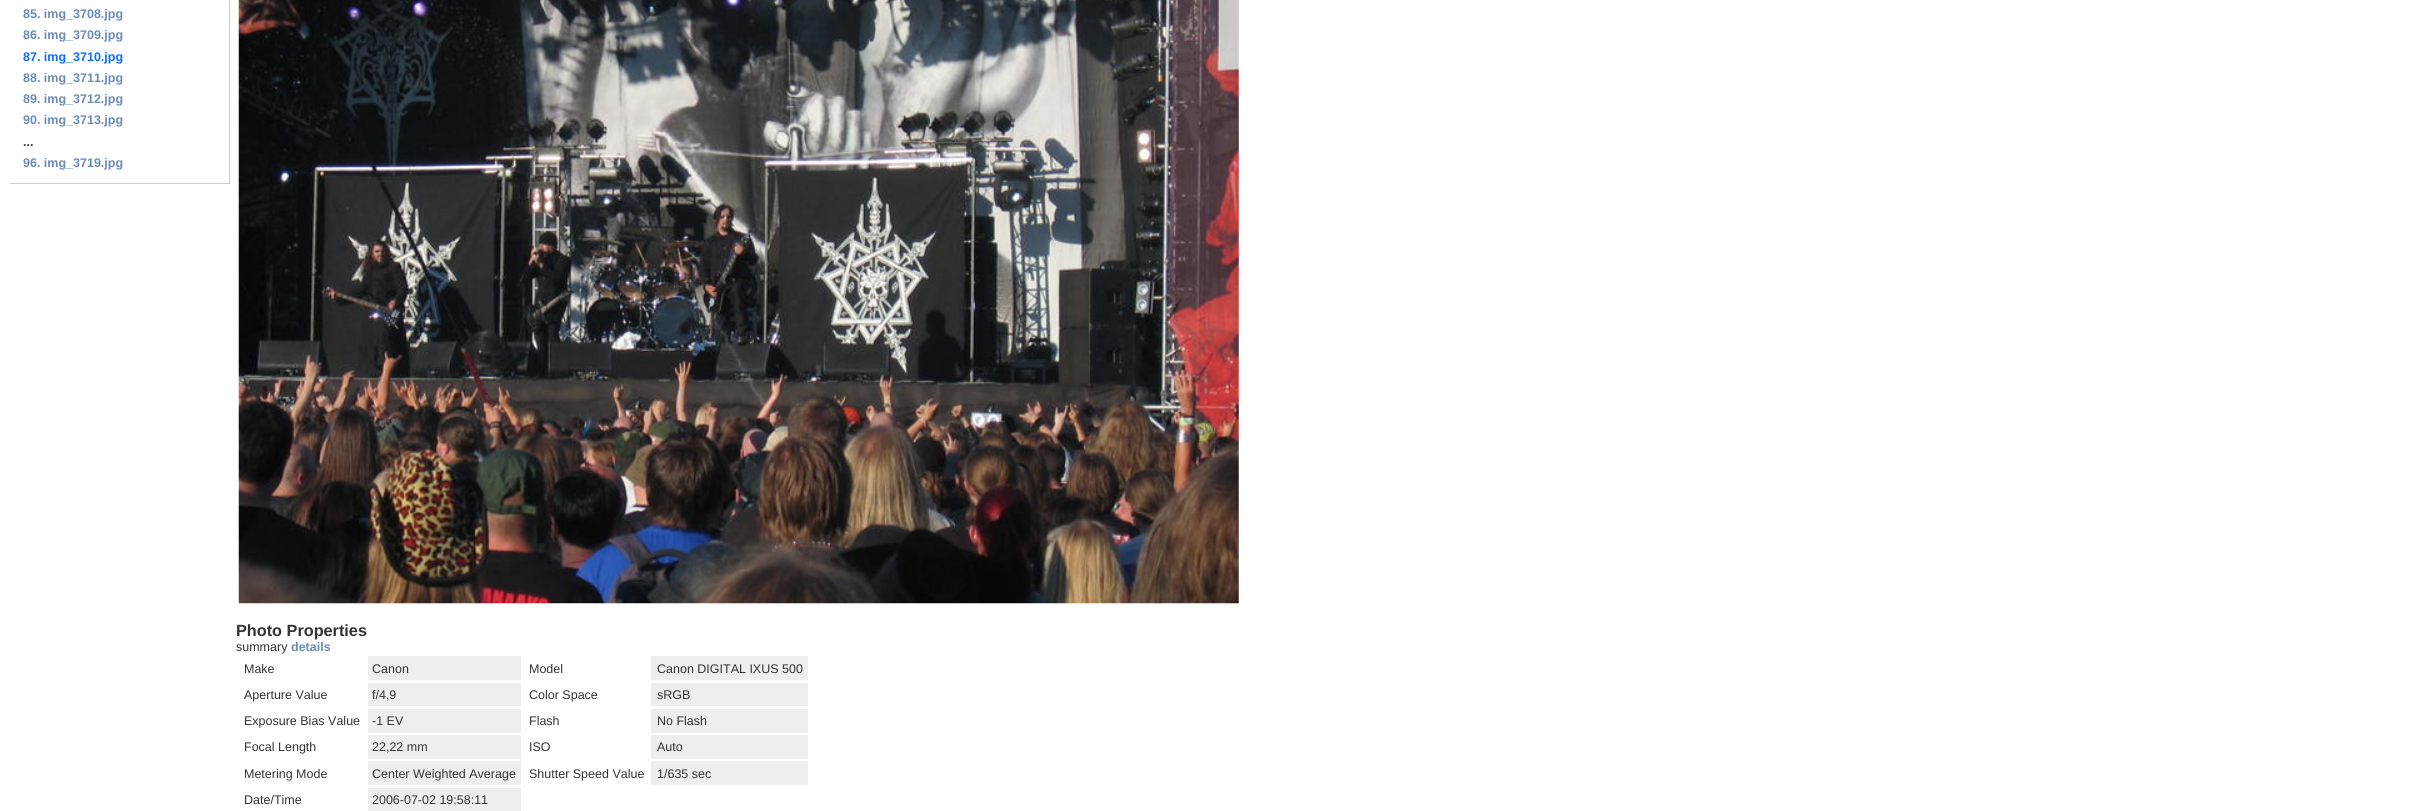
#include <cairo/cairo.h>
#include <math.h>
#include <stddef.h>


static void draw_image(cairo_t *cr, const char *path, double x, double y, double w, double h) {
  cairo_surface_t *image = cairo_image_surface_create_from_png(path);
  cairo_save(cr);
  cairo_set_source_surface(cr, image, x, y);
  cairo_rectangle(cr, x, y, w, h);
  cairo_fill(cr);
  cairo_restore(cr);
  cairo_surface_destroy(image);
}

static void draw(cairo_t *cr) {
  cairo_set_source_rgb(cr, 1, 1, 1);
  cairo_paint(cr);
  cairo_set_source_rgb(cr, 204 / 255.0, 204 / 255.0, 204 / 255.0);
  cairo_rectangle(cr, 229, 0, 1, 184);
  cairo_fill(cr);
  cairo_rectangle(cr, 10, 183, 219, 1);
  cairo_fill(cr);
  draw_image(cr, "images/1.png", 238, 0, 1001, 604);
  cairo_set_source_rgb(cr, 238 / 255.0, 238 / 255.0, 238 / 255.0);
  cairo_rectangle(cr, 368, 656, 153, 24);
  cairo_fill(cr);
  cairo_rectangle(cr, 651, 656, 157, 24);
  cairo_fill(cr);
  cairo_rectangle(cr, 368, 683, 153, 23);
  cairo_fill(cr);
  cairo_rectangle(cr, 651, 683, 157, 23);
  cairo_fill(cr);
  cairo_rectangle(cr, 368, 709, 153, 24);
  cairo_fill(cr);
  cairo_rectangle(cr, 651, 709, 157, 24);
  cairo_fill(cr);
  cairo_rectangle(cr, 368, 735, 153, 24);
  cairo_fill(cr);
  cairo_rectangle(cr, 651, 735, 157, 24);
  cairo_fill(cr);
  cairo_rectangle(cr, 368, 761, 153, 24);
  cairo_fill(cr);
  cairo_rectangle(cr, 651, 761, 157, 24);
  cairo_fill(cr);
  cairo_rectangle(cr, 368, 788, 153, 23);
  cairo_fill(cr);
  cairo_select_font_face(cr, "Liberation Sans", CAIRO_FONT_SLANT_NORMAL, CAIRO_FONT_WEIGHT_BOLD);
  cairo_set_font_size(cr, 12.5);
  cairo_set_source_rgb(cr, 107 / 255.0, 140 / 255.0, 183 / 255.0);
  cairo_move_to(cr, 23, 18);
  cairo_show_text(cr, "85. img_3708.jpg");
  cairo_move_to(cr, 23, 39);
  cairo_show_text(cr, "86. img_3709.jpg");
  cairo_set_source_rgb(cr, 11 / 255.0, 108 / 255.0, 1);
  cairo_move_to(cr, 23, 61);
  cairo_show_text(cr, "87. img_3710.jpg");
  cairo_set_source_rgb(cr, 107 / 255.0, 140 / 255.0, 183 / 255.0);
  cairo_move_to(cr, 23, 82);
  cairo_show_text(cr, "88. img_3711.jpg");
  cairo_move_to(cr, 23, 103);
  cairo_show_text(cr, "89. img_3712.jpg");
  cairo_move_to(cr, 23, 124);
  cairo_show_text(cr, "90. img_3713.jpg");
  cairo_set_source_rgb(cr, 51 / 255.0, 51 / 255.0, 51 / 255.0);
  cairo_move_to(cr, 23, 146);
  cairo_show_text(cr, "...");
  cairo_set_source_rgb(cr, 107 / 255.0, 140 / 255.0, 183 / 255.0);
  cairo_move_to(cr, 23, 167);
  cairo_show_text(cr, "96. img_3719.jpg");
  cairo_set_font_size(cr, 16.25);
  cairo_set_source_rgb(cr, 51 / 255.0, 51 / 255.0, 51 / 255.0);
  cairo_move_to(cr, 236, 636);
  cairo_show_text(cr, "Photo Properties");
  cairo_select_font_face(cr, "Liberation Sans", CAIRO_FONT_SLANT_NORMAL, CAIRO_FONT_WEIGHT_NORMAL);
  cairo_set_font_size(cr, 12.5);
  cairo_move_to(cr, 236, 651);
  cairo_show_text(cr, "summary");
  cairo_select_font_face(cr, "Liberation Sans", CAIRO_FONT_SLANT_NORMAL, CAIRO_FONT_WEIGHT_BOLD);
  cairo_set_source_rgb(cr, 107 / 255.0, 140 / 255.0, 183 / 255.0);
  cairo_move_to(cr, 291, 651);
  cairo_show_text(cr, "details");
  cairo_select_font_face(cr, "Liberation Sans", CAIRO_FONT_SLANT_NORMAL, CAIRO_FONT_WEIGHT_NORMAL);
  cairo_set_source_rgb(cr, 51 / 255.0, 51 / 255.0, 51 / 255.0);
  cairo_move_to(cr, 244, 673);
  cairo_show_text(cr, "Make");
  cairo_move_to(cr, 372, 673);
  cairo_show_text(cr, "Canon");
  cairo_move_to(cr, 529, 673);
  cairo_show_text(cr, "Model");
  cairo_move_to(cr, 657, 673);
  cairo_show_text(cr, "Canon DIGITAL IXUS 500");
  cairo_move_to(cr, 244, 699);
  cairo_show_text(cr, "Aperture Value");
  cairo_move_to(cr, 372, 699);
  cairo_show_text(cr, "f/4,9");
  cairo_move_to(cr, 529, 699);
  cairo_show_text(cr, "Color Space");
  cairo_move_to(cr, 657, 699);
  cairo_show_text(cr, "sRGB");
  cairo_move_to(cr, 244, 725);
  cairo_show_text(cr, "Exposure Bias Value");
  cairo_move_to(cr, 372, 725);
  cairo_show_text(cr, "-1 EV");
  cairo_move_to(cr, 529, 725);
  cairo_show_text(cr, "Flash");
  cairo_move_to(cr, 657, 725);
  cairo_show_text(cr, "No Flash");
  cairo_move_to(cr, 244, 751);
  cairo_show_text(cr, "Focal Length");
  cairo_move_to(cr, 372, 751);
  cairo_show_text(cr, "22,22 mm");
  cairo_move_to(cr, 529, 751);
  cairo_show_text(cr, "ISO");
  cairo_move_to(cr, 657, 751);
  cairo_show_text(cr, "Auto");
  cairo_move_to(cr, 244, 778);
  cairo_show_text(cr, "Metering Mode");
  cairo_move_to(cr, 372, 778);
  cairo_show_text(cr, "Center Weighted Average");
  cairo_move_to(cr, 529, 778);
  cairo_show_text(cr, "Shutter Speed Value");
  cairo_move_to(cr, 657, 778);
  cairo_show_text(cr, "1/635 sec");
  cairo_move_to(cr, 244, 804);
  cairo_show_text(cr, "Date/Time");
  cairo_move_to(cr, 372, 804);
  cairo_show_text(cr, "2006-07-02 19:58:11");
}

int main(void) {
  cairo_surface_t *surface = cairo_image_surface_create(CAIRO_FORMAT_RGB24, 2436, 811);
  cairo_t *cr = cairo_create(surface);
  cairo_font_options_t *options = cairo_font_options_create();
  cairo_font_options_set_hint_metrics(options, CAIRO_HINT_METRICS_OFF);
  cairo_font_options_set_hint_style(options, CAIRO_HINT_STYLE_NONE);
  cairo_set_font_options(cr, options);
  cairo_set_miter_limit(cr, 4);
  draw(cr);
  cairo_surface_write_to_png(surface, "out.png");
  cairo_font_options_destroy(options);
  cairo_destroy(cr);
  cairo_surface_destroy(surface);
  return 0;
}
